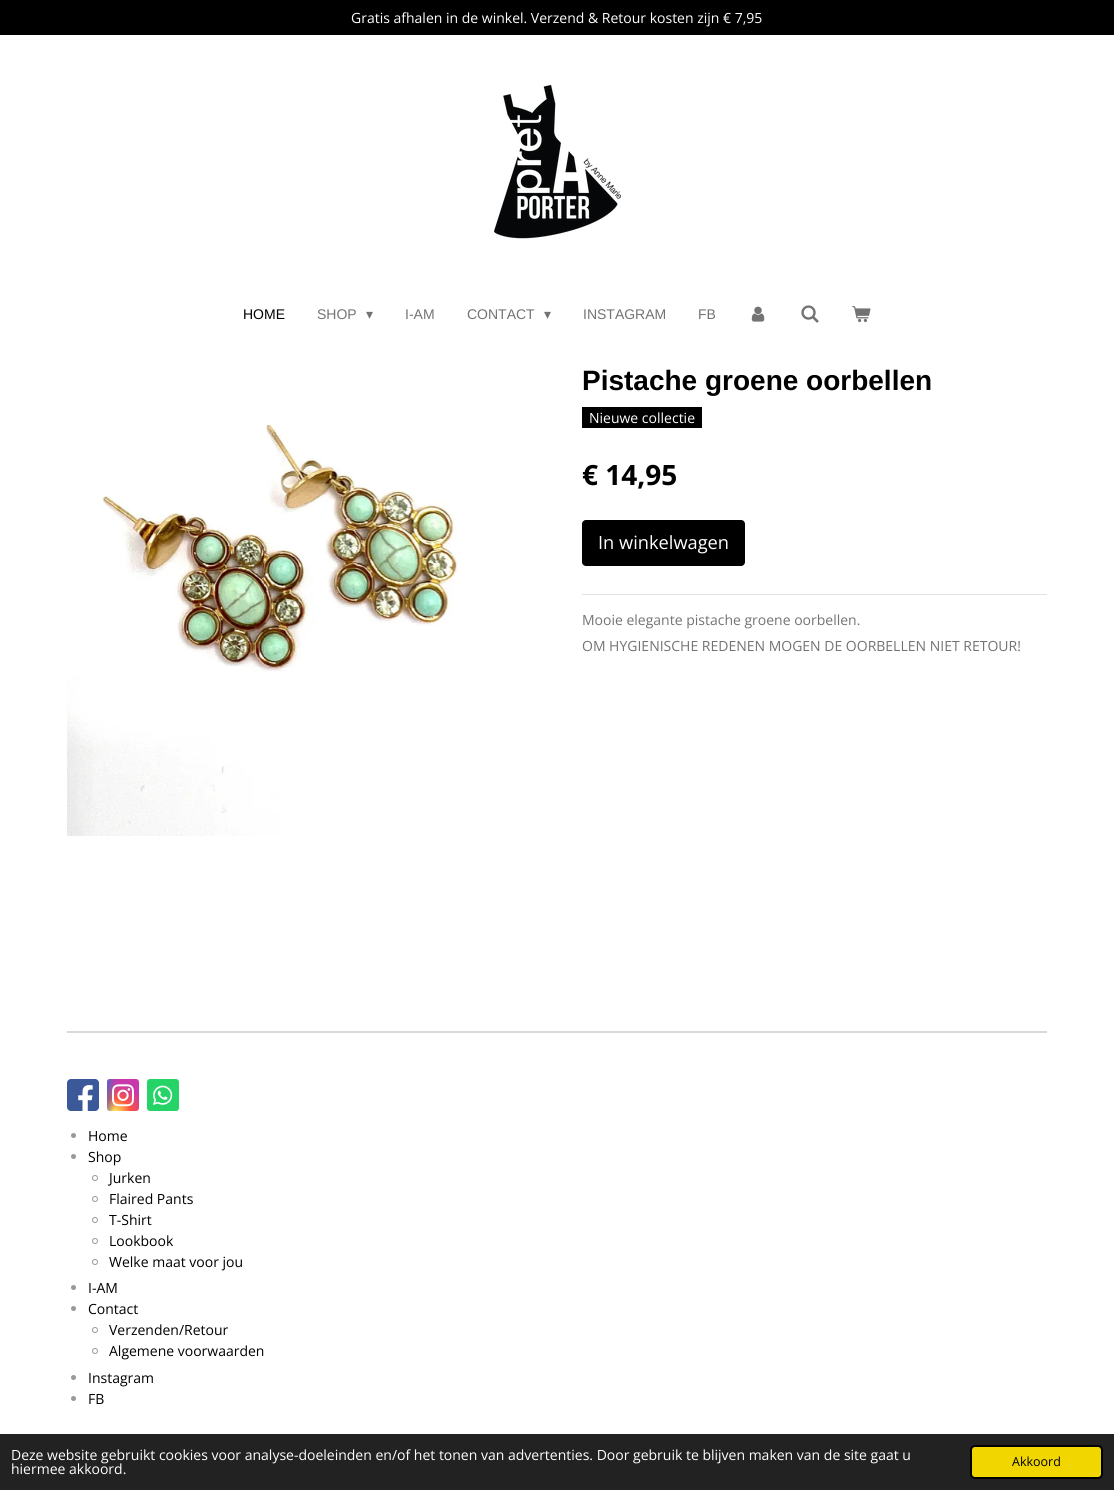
#include <cairo/cairo.h>
#include <math.h>
#include <stddef.h>


static void rounded_rect(cairo_t *cr, double x, double y, double w, double h, double r) {
  cairo_new_sub_path(cr);
  cairo_arc(cr, x + w - r, y + h - r, r, 0, M_PI / 2);
  cairo_arc(cr, x + r, y + h - r, r, M_PI / 2, M_PI);
  cairo_arc(cr, x + r, y + r, r, M_PI, 1.5 * M_PI);
  cairo_arc(cr, x + w - r, y + r, r, 1.5 * M_PI, 2 * M_PI);
  cairo_close_path(cr);
}

static void draw_image(cairo_t *cr, const char *path, double x, double y, double w, double h) {
  cairo_surface_t *image = cairo_image_surface_create_from_png(path);
  cairo_save(cr);
  cairo_set_source_surface(cr, image, x, y);
  cairo_rectangle(cr, x, y, w, h);
  cairo_fill(cr);
  cairo_restore(cr);
  cairo_surface_destroy(image);
}

static void draw(cairo_t *cr) {
  cairo_pattern_t *gradient;
  cairo_set_source_rgb(cr, 1, 1, 1);
  cairo_paint(cr);
  cairo_set_source_rgb(cr, 0, 0, 0);
  cairo_rectangle(cr, 0, 0, 1114, 35);
  cairo_fill(cr);
  draw_image(cr, "images/1.png", 494, 85, 127, 154);
  draw_image(cr, "images/2.png", 751, 306, 14, 16);
  draw_image(cr, "images/3.png", 801, 305, 18, 18);
  draw_image(cr, "images/4.png", 852, 306, 19, 17);
  cairo_rectangle(cr, 582, 407, 120, 21);
  cairo_fill(cr);
  draw_image(cr, "images/5.png", 67, 423, 391, 413);
  rounded_rect(cr, 582, 520, 163, 46, 4);
  cairo_fill(cr);
  cairo_set_source_rgb(cr, 227 / 255.0, 227 / 255.0, 227 / 255.0);
  cairo_rectangle(cr, 582, 594, 465, 1);
  cairo_fill(cr);
  cairo_set_source_rgb(cr, 217 / 255.0, 217 / 255.0, 217 / 255.0);
  cairo_rectangle(cr, 67, 1031, 980, 2);
  cairo_fill(cr);
  cairo_set_source_rgb(cr, 59 / 255.0, 89 / 255.0, 152 / 255.0);
  rounded_rect(cr, 67, 1079, 32, 32, 4);
  cairo_fill(cr);
  draw_image(cr, "images/6.png", 78, 1085, 15, 26);
  gradient = cairo_pattern_create_radial(0, 0, 0, 0, 0, 1);
  cairo_pattern_set_matrix(gradient, &(cairo_matrix_t){1.0 / 31, 0, 0, 1.0 / 29, -1.0 * 115 / 31, -1.0 * 1113 / 29});
  cairo_pattern_add_color_stop_rgba(gradient, 0, 1, 221 / 255.0, 85 / 255.0, 1);
  cairo_pattern_add_color_stop_rgba(gradient, 0.1, 1, 221 / 255.0, 85 / 255.0, 1);
  cairo_pattern_add_color_stop_rgba(gradient, 0.5, 1, 84 / 255.0, 62 / 255.0, 1);
  cairo_pattern_add_color_stop_rgba(gradient, 1, 200 / 255.0, 55 / 255.0, 171 / 255.0, 1);
  cairo_set_source(cr, gradient);
  cairo_pattern_destroy(gradient);
  rounded_rect(cr, 107, 1079, 32, 32, 3);
  cairo_fill(cr);
  gradient = cairo_pattern_create_radial(0, 0, 0, 0, 0, 1);
  cairo_pattern_set_matrix(gradient, &(cairo_matrix_t){1.0 / 14, 0, 0, 1.0 / 58, -1.0 * 102 / 14, -1.0 * 1081 / 58});
  cairo_pattern_add_color_stop_rgba(gradient, 0, 55 / 255.0, 113 / 255.0, 200 / 255.0, 1);
  cairo_pattern_add_color_stop_rgba(gradient, 0.13, 55 / 255.0, 113 / 255.0, 200 / 255.0, 1);
  cairo_pattern_add_color_stop_rgba(gradient, 1, 55 / 255.0, 113 / 255.0, 200 / 255.0, 0);
  cairo_set_source(cr, gradient);
  cairo_pattern_destroy(gradient);
  rounded_rect(cr, 107, 1079, 32, 32, 3);
  cairo_fill(cr);
  draw_image(cr, "images/7.png", 112, 1084, 22, 23);
  cairo_set_source_rgb(cr, 37 / 255.0, 211 / 255.0, 102 / 255.0);
  rounded_rect(cr, 147, 1079, 32, 32, 3);
  cairo_fill(cr);
  draw_image(cr, "images/8.png", 153, 1085, 20, 20);
  cairo_set_source_rgb(cr, 153 / 255.0, 153 / 255.0, 153 / 255.0);
  cairo_arc(cr, 73.5, 1135.5, 2.5, 0, 2 * M_PI);
  cairo_fill(cr);
  cairo_arc(cr, 73.5, 1156.5, 2.5, 0, 2 * M_PI);
  cairo_fill(cr);
  cairo_arc(cr, 95, 1178, 2.5, 0, 2 * M_PI);
  cairo_set_line_width(cr, 1);
  cairo_stroke(cr);
  cairo_arc(cr, 95, 1199, 2.5, 0, 2 * M_PI);
  cairo_stroke(cr);
  cairo_arc(cr, 95, 1220, 2.5, 0, 2 * M_PI);
  cairo_stroke(cr);
  cairo_arc(cr, 95, 1241, 2.5, 0, 2 * M_PI);
  cairo_stroke(cr);
  cairo_arc(cr, 95, 1262, 2.5, 0, 2 * M_PI);
  cairo_stroke(cr);
  cairo_arc(cr, 73.5, 1287.5, 2.5, 0, 2 * M_PI);
  cairo_fill(cr);
  cairo_arc(cr, 73.5, 1308.5, 2.5, 0, 2 * M_PI);
  cairo_fill(cr);
  cairo_arc(cr, 95, 1330, 2.5, 0, 2 * M_PI);
  cairo_stroke(cr);
  cairo_arc(cr, 95, 1351, 2.5, 0, 2 * M_PI);
  cairo_stroke(cr);
  cairo_arc(cr, 73.5, 1377.5, 2.5, 0, 2 * M_PI);
  cairo_fill(cr);
  cairo_arc(cr, 73.5, 1398.5, 2.5, 0, 2 * M_PI);
  cairo_fill(cr);
  cairo_set_source_rgb(cr, 34 / 255.0, 34 / 255.0, 34 / 255.0);
  cairo_rectangle(cr, 0, 1434, 1114, 56);
  cairo_fill(cr);
  cairo_set_source_rgb(cr, 241 / 255.0, 214 / 255.0, 0);
  rounded_rect(cr, 971, 1446, 131, 32, 4);
  cairo_fill_preserve(cr);
  cairo_set_source_rgb(cr, 0, 0, 0);
  cairo_set_line_width(cr, 2);
  cairo_stroke(cr);
  cairo_select_font_face(cr, "Open Sans", CAIRO_FONT_SLANT_NORMAL, CAIRO_FONT_WEIGHT_NORMAL);
  cairo_set_font_size(cr, 14);
  cairo_set_source_rgb(cr, 1, 1, 1);
  cairo_move_to(cr, 351, 23);
  cairo_show_text(cr, "Gratis afhalen in de winkel. Verzend & Retour kosten zijn € 7,95");
  cairo_select_font_face(cr, "Liberation Sans", CAIRO_FONT_SLANT_NORMAL, CAIRO_FONT_WEIGHT_NORMAL);
  cairo_set_source_rgb(cr, 0, 0, 0);
  cairo_move_to(cr, 243, 319);
  cairo_show_text(cr, "HOME");
  cairo_set_source_rgb(cr, 115 / 255.0, 115 / 255.0, 115 / 255.0);
  cairo_move_to(cr, 317, 319);
  cairo_show_text(cr, "SHOP");
  cairo_select_font_face(cr, "DejaVu Sans", CAIRO_FONT_SLANT_NORMAL, CAIRO_FONT_WEIGHT_NORMAL);
  cairo_move_to(cr, 366, 319);
  cairo_show_text(cr, "▾");
  cairo_select_font_face(cr, "Liberation Sans", CAIRO_FONT_SLANT_NORMAL, CAIRO_FONT_WEIGHT_NORMAL);
  cairo_move_to(cr, 405, 319);
  cairo_show_text(cr, "I-AM");
  cairo_move_to(cr, 467, 319);
  cairo_show_text(cr, "CONTACT");
  cairo_select_font_face(cr, "DejaVu Sans", CAIRO_FONT_SLANT_NORMAL, CAIRO_FONT_WEIGHT_NORMAL);
  cairo_move_to(cr, 544, 319);
  cairo_show_text(cr, "▾");
  cairo_select_font_face(cr, "Liberation Sans", CAIRO_FONT_SLANT_NORMAL, CAIRO_FONT_WEIGHT_NORMAL);
  cairo_move_to(cr, 583, 319);
  cairo_show_text(cr, "INSTAGRAM");
  cairo_move_to(cr, 698, 319);
  cairo_show_text(cr, "FB");
  cairo_select_font_face(cr, "Liberation Sans", CAIRO_FONT_SLANT_NORMAL, CAIRO_FONT_WEIGHT_BOLD);
  cairo_set_font_size(cr, 28);
  cairo_set_source_rgb(cr, 0, 0, 0);
  cairo_move_to(cr, 582, 390);
  cairo_show_text(cr, "Pistache groene oorbellen");
  cairo_select_font_face(cr, "Open Sans", CAIRO_FONT_SLANT_NORMAL, CAIRO_FONT_WEIGHT_NORMAL);
  cairo_set_font_size(cr, 14);
  cairo_set_source_rgb(cr, 1, 1, 1);
  cairo_move_to(cr, 589, 423);
  cairo_show_text(cr, "Nieuwe collectie");
  cairo_select_font_face(cr, "Open Sans", CAIRO_FONT_SLANT_NORMAL, CAIRO_FONT_WEIGHT_BOLD);
  cairo_set_font_size(cr, 28);
  cairo_set_source_rgb(cr, 0, 0, 0);
  cairo_move_to(cr, 582, 485);
  cairo_show_text(cr, "€ 14,95");
  cairo_select_font_face(cr, "Open Sans", CAIRO_FONT_SLANT_NORMAL, CAIRO_FONT_WEIGHT_NORMAL);
  cairo_set_font_size(cr, 18.25);
  cairo_set_source_rgb(cr, 1, 1, 1);
  cairo_move_to(cr, 598, 549);
  cairo_show_text(cr, "In winkelwagen");
  cairo_set_font_size(cr, 14);
  cairo_set_source_rgb(cr, 115 / 255.0, 115 / 255.0, 115 / 255.0);
  cairo_move_to(cr, 582, 625);
  cairo_show_text(cr, "Mooie elegante pistache groene oorbellen.");
  cairo_move_to(cr, 582, 651);
  cairo_show_text(cr, "OM HYGIENISCHE REDENEN MOGEN DE OORBELLEN NIET RETOUR!");
  cairo_set_source_rgb(cr, 0, 0, 0);
  cairo_move_to(cr, 88, 1141);
  cairo_show_text(cr, "Home");
  cairo_move_to(cr, 88, 1162);
  cairo_show_text(cr, "Shop");
  cairo_move_to(cr, 109, 1183);
  cairo_show_text(cr, "Jurken");
  cairo_move_to(cr, 109, 1204);
  cairo_show_text(cr, "Flaired Pants");
  cairo_move_to(cr, 109, 1225);
  cairo_show_text(cr, "T-Shirt");
  cairo_move_to(cr, 109, 1246);
  cairo_show_text(cr, "Lookbook");
  cairo_move_to(cr, 109, 1267);
  cairo_show_text(cr, "Welke maat voor jou");
  cairo_move_to(cr, 88, 1293);
  cairo_show_text(cr, "I-AM");
  cairo_move_to(cr, 88, 1314);
  cairo_show_text(cr, "Contact");
  cairo_move_to(cr, 109, 1335);
  cairo_show_text(cr, "Verzenden/Retour");
  cairo_move_to(cr, 109, 1356);
  cairo_show_text(cr, "Algemene voorwaarden");
  cairo_move_to(cr, 88, 1383);
  cairo_show_text(cr, "Instagram");
  cairo_move_to(cr, 88, 1404);
  cairo_show_text(cr, "FB");
  cairo_set_source_rgb(cr, 1, 1, 1);
  cairo_move_to(cr, 11, 1460);
  cairo_show_text(cr, "Deze website gebruikt cookies voor analyse-doeleinden en/of het tonen van advertenties. Door gebruik te blijven maken van de site gaat u");
  cairo_move_to(cr, 11, 1474);
  cairo_show_text(cr, "hiermee akkoord.");
  cairo_set_font_size(cr, 12.5);
  cairo_set_source_rgb(cr, 0, 0, 0);
  cairo_move_to(cr, 1012, 1466);
  cairo_show_text(cr, "Akkoord");
}

int main(void) {
  cairo_surface_t *surface = cairo_image_surface_create(CAIRO_FORMAT_RGB24, 1114, 1490);
  cairo_t *cr = cairo_create(surface);
  cairo_font_options_t *options = cairo_font_options_create();
  cairo_font_options_set_hint_metrics(options, CAIRO_HINT_METRICS_OFF);
  cairo_font_options_set_hint_style(options, CAIRO_HINT_STYLE_NONE);
  cairo_set_font_options(cr, options);
  cairo_set_miter_limit(cr, 4);
  draw(cr);
  cairo_surface_write_to_png(surface, "out.png");
  cairo_font_options_destroy(options);
  cairo_destroy(cr);
  cairo_surface_destroy(surface);
  return 0;
}
